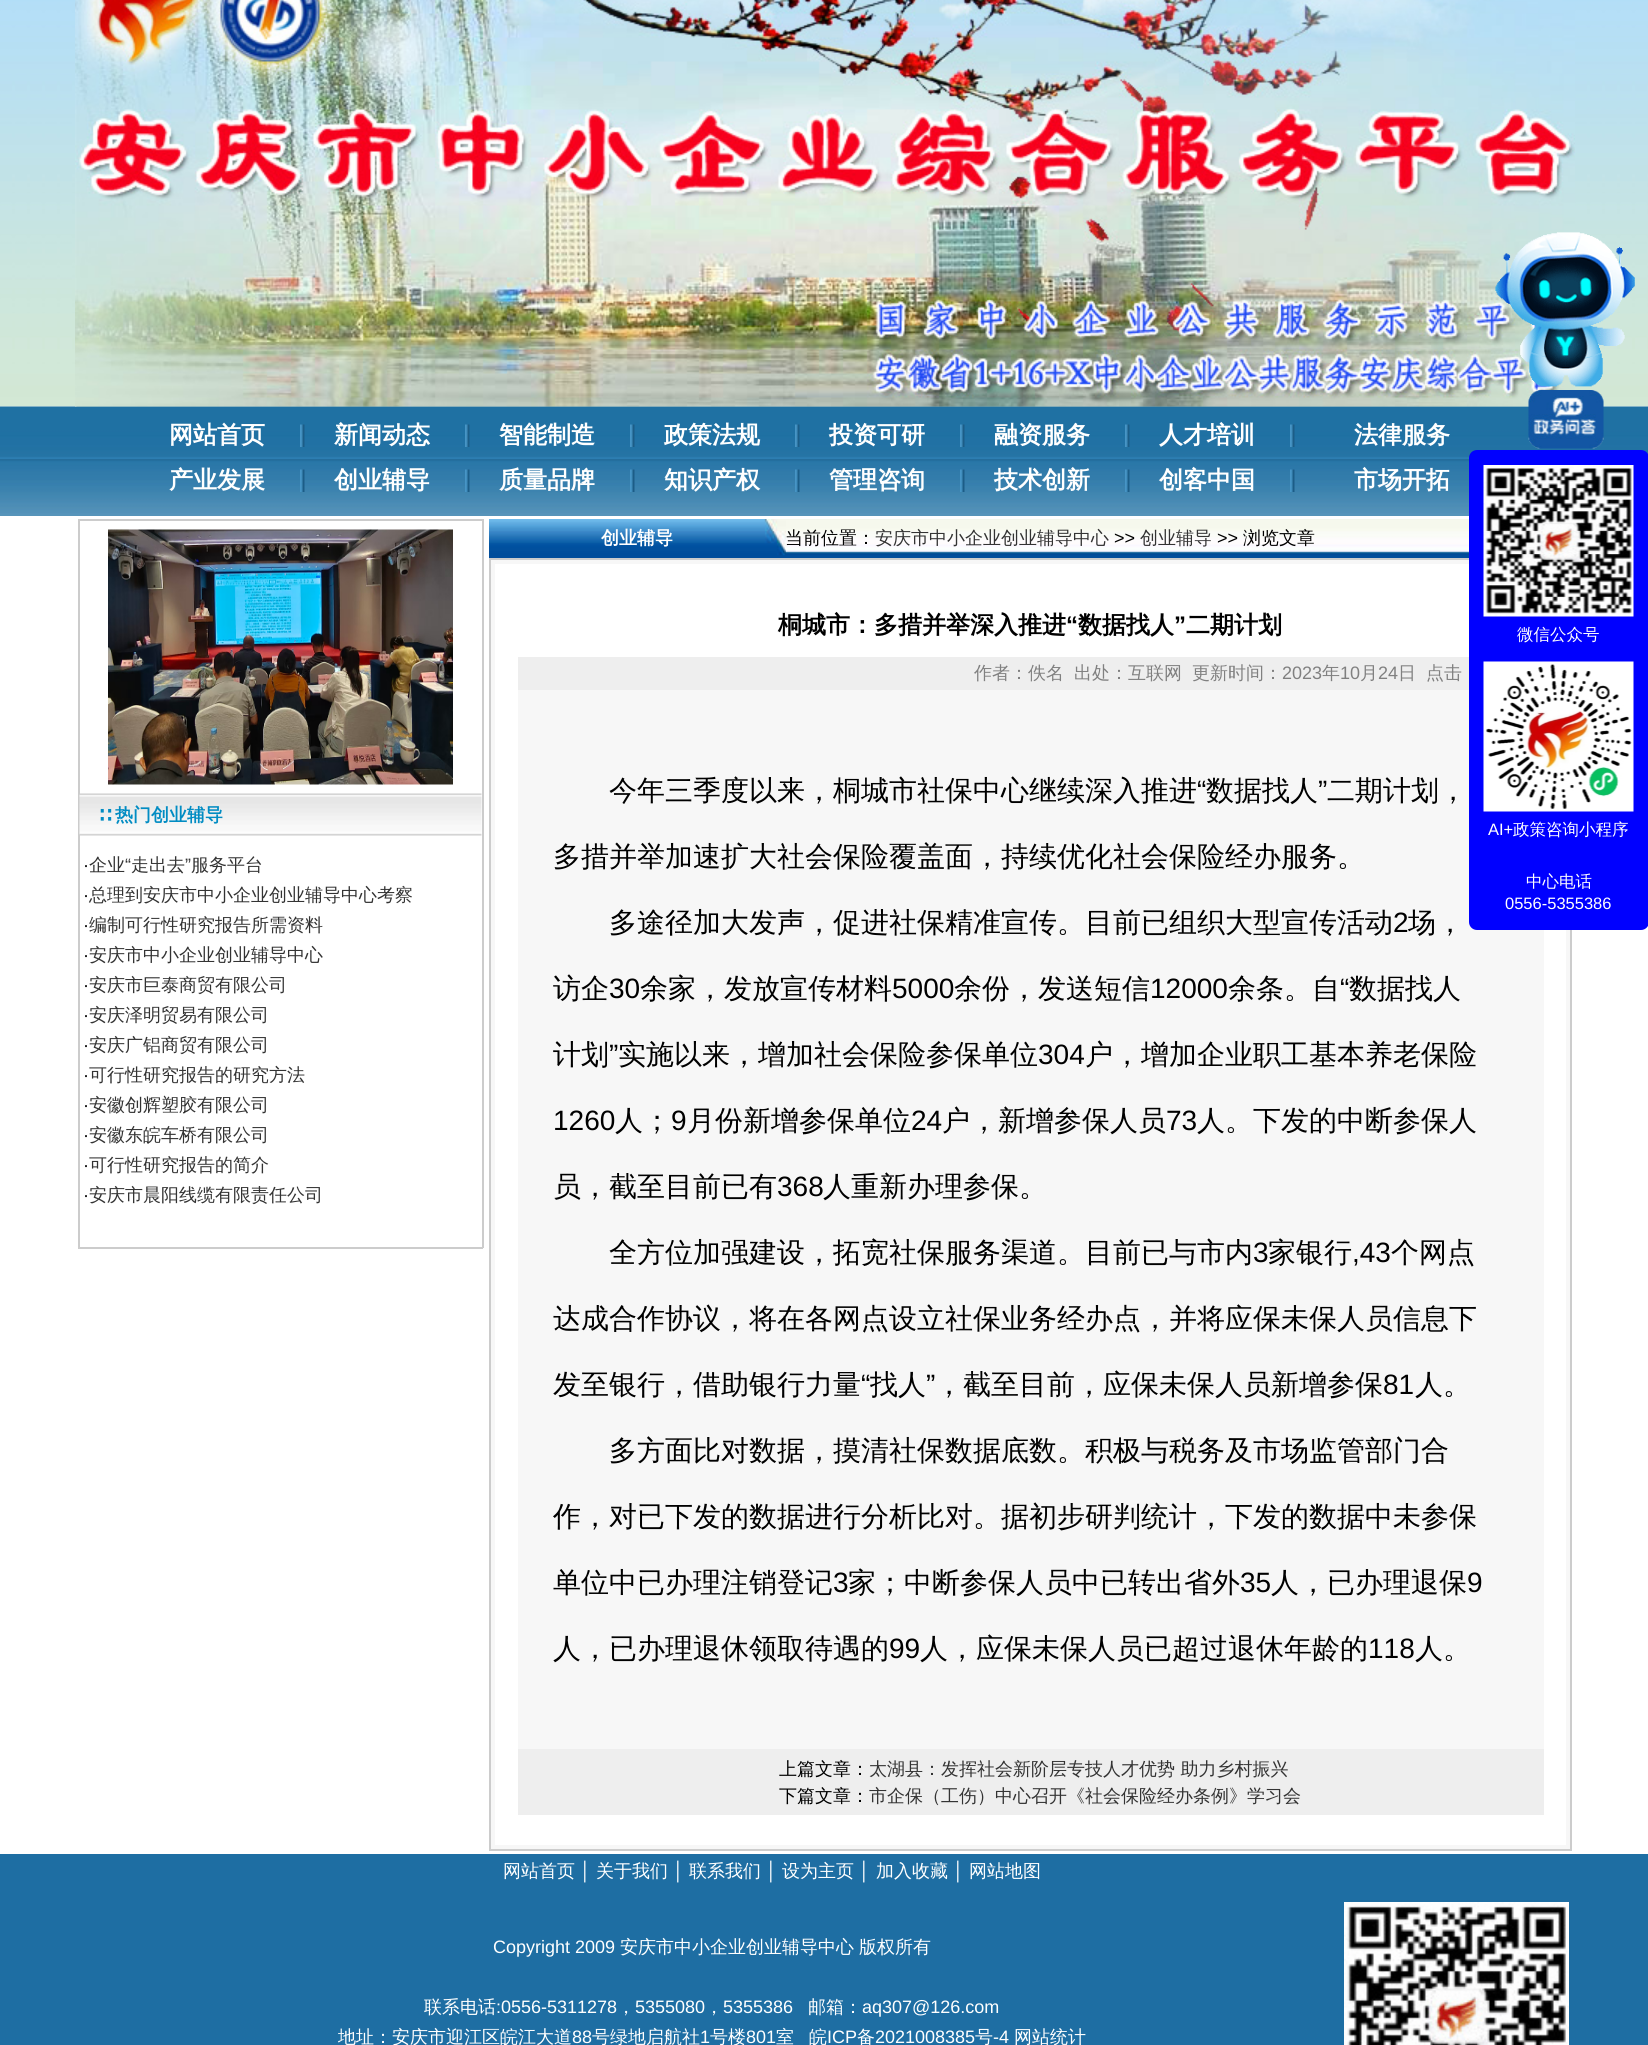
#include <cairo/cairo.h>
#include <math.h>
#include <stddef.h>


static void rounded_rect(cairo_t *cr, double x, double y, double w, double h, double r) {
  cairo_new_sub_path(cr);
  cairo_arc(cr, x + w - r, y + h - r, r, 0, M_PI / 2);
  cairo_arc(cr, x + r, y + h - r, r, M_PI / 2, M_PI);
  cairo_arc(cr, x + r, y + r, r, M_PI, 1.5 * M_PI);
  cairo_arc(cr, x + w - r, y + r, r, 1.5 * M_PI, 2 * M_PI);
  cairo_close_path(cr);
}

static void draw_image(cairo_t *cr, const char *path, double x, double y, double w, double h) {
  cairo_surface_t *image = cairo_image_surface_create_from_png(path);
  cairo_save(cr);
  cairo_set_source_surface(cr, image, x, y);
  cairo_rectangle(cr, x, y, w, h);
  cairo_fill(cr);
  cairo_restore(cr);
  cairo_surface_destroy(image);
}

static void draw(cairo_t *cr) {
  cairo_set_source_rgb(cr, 1, 1, 1);
  cairo_paint(cr);
  draw_image(cr, "images/1.png", 0, 0, 1648, 407);
  draw_image(cr, "images/3.png", 0, 406, 1648, 110);
  draw_image(cr, "images/4.png", 76, 406, 1453, 1);
  draw_image(cr, "images/2.png", 75, 0, 1500, 407);
  draw_image(cr, "images/5.png", 300, 424, 5, 23);
  draw_image(cr, "images/6.png", 465, 424, 5, 23);
  draw_image(cr, "images/6.png", 630, 424, 5, 23);
  draw_image(cr, "images/6.png", 795, 424, 5, 23);
  draw_image(cr, "images/6.png", 960, 424, 5, 23);
  draw_image(cr, "images/5.png", 1125, 424, 5, 23);
  draw_image(cr, "images/6.png", 1290, 424, 5, 23);
  draw_image(cr, "images/7.png", 300, 469, 5, 23);
  draw_image(cr, "images/8.png", 465, 469, 5, 23);
  draw_image(cr, "images/7.png", 630, 469, 5, 23);
  draw_image(cr, "images/8.png", 795, 469, 5, 23);
  draw_image(cr, "images/8.png", 960, 469, 5, 23);
  draw_image(cr, "images/9.png", 1125, 469, 5, 23);
  draw_image(cr, "images/8.png", 1290, 469, 5, 23);
  cairo_set_source_rgb(cr, 204 / 255.0, 204 / 255.0, 204 / 255.0);
  cairo_rectangle(cr, 78, 519, 405, 2);
  cairo_fill(cr);
  cairo_rectangle(cr, 482, 519, 2, 729);
  cairo_fill(cr);
  cairo_rectangle(cr, 78, 519, 2, 707);
  cairo_fill(cr);
  draw_image(cr, "images/10.png", 108, 529, 345, 256);
  draw_image(cr, "images/11.png", 79, 793, 403, 43);
  cairo_rectangle(cr, 78, 1247, 405, 2);
  cairo_fill(cr);
  cairo_rectangle(cr, 78, 1226, 2, 22);
  cairo_fill(cr);
  draw_image(cr, "images/12.png", 489, 519, 297, 39);
  draw_image(cr, "images/13.png", 786, 519, 683, 39);
  cairo_set_source_rgb(cr, 247 / 255.0, 247 / 255.0, 247 / 255.0);
  cairo_rectangle(cr, 490, 559, 1081, 1291);
  cairo_fill_preserve(cr);
  cairo_set_source_rgb(cr, 204 / 255.0, 204 / 255.0, 204 / 255.0);
  cairo_stroke(cr);
  cairo_set_source_rgb(cr, 1, 1, 1);
  cairo_rectangle(cr, 495, 564, 1071, 1281);
  cairo_fill(cr);
  cairo_set_source_rgb(cr, 238 / 255.0, 238 / 255.0, 238 / 255.0);
  cairo_rectangle(cr, 518, 657, 951, 33);
  cairo_fill(cr);
  cairo_set_source_rgb(cr, 247 / 255.0, 247 / 255.0, 247 / 255.0);
  cairo_rectangle(cr, 518, 690, 1026, 1059);
  cairo_fill(cr);
  cairo_set_source_rgb(cr, 238 / 255.0, 238 / 255.0, 238 / 255.0);
  cairo_rectangle(cr, 518, 1749, 1026, 66);
  cairo_fill(cr);
  cairo_set_source_rgb(cr, 0, 0, 1);
  rounded_rect(cr, 1469, 450, 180, 480, 8);
  cairo_fill(cr);
  draw_image(cr, "images/14.png", 1495, 232, 140, 155);
  draw_image(cr, "images/15.png", 1528, 390, 76, 59);
  draw_image(cr, "images/16.png", 1483, 465, 151, 152);
  draw_image(cr, "images/17.png", 1483, 661, 151, 151);
  cairo_set_source_rgb(cr, 30 / 255.0, 110 / 255.0, 163 / 255.0);
  cairo_rectangle(cr, 0, 1854, 1648, 191);
  cairo_fill(cr);
  draw_image(cr, "images/18.png", 1344, 1902, 225, 143);
  cairo_select_font_face(cr, "WenQuanYi Zen Hei", CAIRO_FONT_SLANT_NORMAL, CAIRO_FONT_WEIGHT_BOLD);
  cairo_set_font_size(cr, 24);
  cairo_set_source_rgb(cr, 1, 1, 1);
  cairo_move_to(cr, 169, 443);
  cairo_show_text(cr, "网站首页");
  cairo_move_to(cr, 334, 443);
  cairo_show_text(cr, "新闻动态");
  cairo_move_to(cr, 499, 443);
  cairo_show_text(cr, "智能制造");
  cairo_move_to(cr, 664, 443);
  cairo_show_text(cr, "政策法规");
  cairo_move_to(cr, 829, 443);
  cairo_show_text(cr, "投资可研");
  cairo_move_to(cr, 994, 443);
  cairo_show_text(cr, "融资服务");
  cairo_move_to(cr, 1159, 443);
  cairo_show_text(cr, "人才培训");
  cairo_move_to(cr, 1354, 443);
  cairo_show_text(cr, "法律服务");
  cairo_move_to(cr, 169, 488);
  cairo_show_text(cr, "产业发展");
  cairo_move_to(cr, 334, 488);
  cairo_show_text(cr, "创业辅导");
  cairo_move_to(cr, 499, 488);
  cairo_show_text(cr, "质量品牌");
  cairo_move_to(cr, 664, 488);
  cairo_show_text(cr, "知识产权");
  cairo_move_to(cr, 829, 488);
  cairo_show_text(cr, "管理咨询");
  cairo_move_to(cr, 994, 488);
  cairo_show_text(cr, "技术创新");
  cairo_move_to(cr, 1159, 488);
  cairo_show_text(cr, "创客中国");
  cairo_move_to(cr, 1354, 488);
  cairo_show_text(cr, "市场开拓");
  cairo_set_font_size(cr, 18);
  cairo_set_source_rgb(cr, 1 / 255.0, 140 / 255.0, 195 / 255.0);
  cairo_move_to(cr, 97, 821);
  cairo_show_text(cr, "∷");
  cairo_move_to(cr, 115, 821);
  cairo_show_text(cr, "热门创业辅导");
  cairo_select_font_face(cr, "WenQuanYi Zen Hei Medium", CAIRO_FONT_SLANT_NORMAL, CAIRO_FONT_WEIGHT_NORMAL);
  cairo_set_source_rgb(cr, 51 / 255.0, 51 / 255.0, 51 / 255.0);
  cairo_move_to(cr, 89, 871);
  cairo_show_text(cr, "企业");
  cairo_select_font_face(cr, "Liberation Sans", CAIRO_FONT_SLANT_NORMAL, CAIRO_FONT_WEIGHT_NORMAL);
  cairo_move_to(cr, 125, 871);
  cairo_show_text(cr, "“");
  cairo_select_font_face(cr, "WenQuanYi Zen Hei Medium", CAIRO_FONT_SLANT_NORMAL, CAIRO_FONT_WEIGHT_NORMAL);
  cairo_move_to(cr, 131, 871);
  cairo_show_text(cr, "走出去");
  cairo_select_font_face(cr, "Liberation Sans", CAIRO_FONT_SLANT_NORMAL, CAIRO_FONT_WEIGHT_NORMAL);
  cairo_move_to(cr, 185, 871);
  cairo_show_text(cr, "”");
  cairo_select_font_face(cr, "WenQuanYi Zen Hei Medium", CAIRO_FONT_SLANT_NORMAL, CAIRO_FONT_WEIGHT_NORMAL);
  cairo_move_to(cr, 191, 871);
  cairo_show_text(cr, "服务平台");
  cairo_select_font_face(cr, "Liberation Sans", CAIRO_FONT_SLANT_NORMAL, CAIRO_FONT_WEIGHT_NORMAL);
  cairo_set_source_rgb(cr, 0, 0, 0);
  cairo_move_to(cr, 83, 871);
  cairo_show_text(cr, "·");
  cairo_move_to(cr, 83, 901);
  cairo_show_text(cr, "·");
  cairo_select_font_face(cr, "WenQuanYi Zen Hei Medium", CAIRO_FONT_SLANT_NORMAL, CAIRO_FONT_WEIGHT_NORMAL);
  cairo_set_source_rgb(cr, 51 / 255.0, 51 / 255.0, 51 / 255.0);
  cairo_move_to(cr, 89, 901);
  cairo_show_text(cr, "总理到安庆市中小企业创业辅导中心考察");
  cairo_select_font_face(cr, "Liberation Sans", CAIRO_FONT_SLANT_NORMAL, CAIRO_FONT_WEIGHT_NORMAL);
  cairo_set_source_rgb(cr, 0, 0, 0);
  cairo_move_to(cr, 83, 931);
  cairo_show_text(cr, "·");
  cairo_select_font_face(cr, "WenQuanYi Zen Hei Medium", CAIRO_FONT_SLANT_NORMAL, CAIRO_FONT_WEIGHT_NORMAL);
  cairo_set_source_rgb(cr, 51 / 255.0, 51 / 255.0, 51 / 255.0);
  cairo_move_to(cr, 89, 931);
  cairo_show_text(cr, "编制可行性研究报告所需资料");
  cairo_select_font_face(cr, "Liberation Sans", CAIRO_FONT_SLANT_NORMAL, CAIRO_FONT_WEIGHT_NORMAL);
  cairo_set_source_rgb(cr, 0, 0, 0);
  cairo_move_to(cr, 83, 961);
  cairo_show_text(cr, "·");
  cairo_select_font_face(cr, "WenQuanYi Zen Hei Medium", CAIRO_FONT_SLANT_NORMAL, CAIRO_FONT_WEIGHT_NORMAL);
  cairo_set_source_rgb(cr, 51 / 255.0, 51 / 255.0, 51 / 255.0);
  cairo_move_to(cr, 89, 961);
  cairo_show_text(cr, "安庆市中小企业创业辅导中心");
  cairo_select_font_face(cr, "Liberation Sans", CAIRO_FONT_SLANT_NORMAL, CAIRO_FONT_WEIGHT_NORMAL);
  cairo_set_source_rgb(cr, 0, 0, 0);
  cairo_move_to(cr, 83, 991);
  cairo_show_text(cr, "·");
  cairo_select_font_face(cr, "WenQuanYi Zen Hei Medium", CAIRO_FONT_SLANT_NORMAL, CAIRO_FONT_WEIGHT_NORMAL);
  cairo_set_source_rgb(cr, 51 / 255.0, 51 / 255.0, 51 / 255.0);
  cairo_move_to(cr, 89, 991);
  cairo_show_text(cr, "安庆市巨泰商贸有限公司");
  cairo_select_font_face(cr, "Liberation Sans", CAIRO_FONT_SLANT_NORMAL, CAIRO_FONT_WEIGHT_NORMAL);
  cairo_set_source_rgb(cr, 0, 0, 0);
  cairo_move_to(cr, 83, 1021);
  cairo_show_text(cr, "·");
  cairo_select_font_face(cr, "WenQuanYi Zen Hei Medium", CAIRO_FONT_SLANT_NORMAL, CAIRO_FONT_WEIGHT_NORMAL);
  cairo_set_source_rgb(cr, 51 / 255.0, 51 / 255.0, 51 / 255.0);
  cairo_move_to(cr, 89, 1021);
  cairo_show_text(cr, "安庆泽明贸易有限公司");
  cairo_select_font_face(cr, "Liberation Sans", CAIRO_FONT_SLANT_NORMAL, CAIRO_FONT_WEIGHT_NORMAL);
  cairo_set_source_rgb(cr, 0, 0, 0);
  cairo_move_to(cr, 83, 1051);
  cairo_show_text(cr, "·");
  cairo_select_font_face(cr, "WenQuanYi Zen Hei Medium", CAIRO_FONT_SLANT_NORMAL, CAIRO_FONT_WEIGHT_NORMAL);
  cairo_set_source_rgb(cr, 51 / 255.0, 51 / 255.0, 51 / 255.0);
  cairo_move_to(cr, 89, 1051);
  cairo_show_text(cr, "安庆广铝商贸有限公司");
  cairo_select_font_face(cr, "Liberation Sans", CAIRO_FONT_SLANT_NORMAL, CAIRO_FONT_WEIGHT_NORMAL);
  cairo_set_source_rgb(cr, 0, 0, 0);
  cairo_move_to(cr, 83, 1081);
  cairo_show_text(cr, "·");
  cairo_select_font_face(cr, "WenQuanYi Zen Hei Medium", CAIRO_FONT_SLANT_NORMAL, CAIRO_FONT_WEIGHT_NORMAL);
  cairo_set_source_rgb(cr, 51 / 255.0, 51 / 255.0, 51 / 255.0);
  cairo_move_to(cr, 89, 1081);
  cairo_show_text(cr, "可行性研究报告的研究方法");
  cairo_select_font_face(cr, "Liberation Sans", CAIRO_FONT_SLANT_NORMAL, CAIRO_FONT_WEIGHT_NORMAL);
  cairo_set_source_rgb(cr, 0, 0, 0);
  cairo_move_to(cr, 83, 1111);
  cairo_show_text(cr, "·");
  cairo_select_font_face(cr, "WenQuanYi Zen Hei Medium", CAIRO_FONT_SLANT_NORMAL, CAIRO_FONT_WEIGHT_NORMAL);
  cairo_set_source_rgb(cr, 51 / 255.0, 51 / 255.0, 51 / 255.0);
  cairo_move_to(cr, 89, 1111);
  cairo_show_text(cr, "安徽创辉塑胶有限公司");
  cairo_select_font_face(cr, "Liberation Sans", CAIRO_FONT_SLANT_NORMAL, CAIRO_FONT_WEIGHT_NORMAL);
  cairo_set_source_rgb(cr, 0, 0, 0);
  cairo_move_to(cr, 83, 1141);
  cairo_show_text(cr, "·");
  cairo_select_font_face(cr, "WenQuanYi Zen Hei Medium", CAIRO_FONT_SLANT_NORMAL, CAIRO_FONT_WEIGHT_NORMAL);
  cairo_set_source_rgb(cr, 51 / 255.0, 51 / 255.0, 51 / 255.0);
  cairo_move_to(cr, 89, 1141);
  cairo_show_text(cr, "安徽东皖车桥有限公司");
  cairo_select_font_face(cr, "Liberation Sans", CAIRO_FONT_SLANT_NORMAL, CAIRO_FONT_WEIGHT_NORMAL);
  cairo_set_source_rgb(cr, 0, 0, 0);
  cairo_move_to(cr, 83, 1171);
  cairo_show_text(cr, "·");
  cairo_select_font_face(cr, "WenQuanYi Zen Hei Medium", CAIRO_FONT_SLANT_NORMAL, CAIRO_FONT_WEIGHT_NORMAL);
  cairo_set_source_rgb(cr, 51 / 255.0, 51 / 255.0, 51 / 255.0);
  cairo_move_to(cr, 89, 1171);
  cairo_show_text(cr, "可行性研究报告的简介");
  cairo_select_font_face(cr, "Liberation Sans", CAIRO_FONT_SLANT_NORMAL, CAIRO_FONT_WEIGHT_NORMAL);
  cairo_set_source_rgb(cr, 0, 0, 0);
  cairo_move_to(cr, 83, 1201);
  cairo_show_text(cr, "·");
  cairo_select_font_face(cr, "WenQuanYi Zen Hei Medium", CAIRO_FONT_SLANT_NORMAL, CAIRO_FONT_WEIGHT_NORMAL);
  cairo_set_source_rgb(cr, 51 / 255.0, 51 / 255.0, 51 / 255.0);
  cairo_move_to(cr, 89, 1201);
  cairo_show_text(cr, "安庆市晨阳线缆有限责任公司");
  cairo_select_font_face(cr, "WenQuanYi Zen Hei", CAIRO_FONT_SLANT_NORMAL, CAIRO_FONT_WEIGHT_BOLD);
  cairo_set_source_rgb(cr, 1, 1, 1);
  cairo_move_to(cr, 601, 544);
  cairo_show_text(cr, "创业辅导");
  cairo_select_font_face(cr, "WenQuanYi Zen Hei Medium", CAIRO_FONT_SLANT_NORMAL, CAIRO_FONT_WEIGHT_NORMAL);
  cairo_set_source_rgb(cr, 0, 0, 0);
  cairo_move_to(cr, 785, 544);
  cairo_show_text(cr, "当前位置：");
  cairo_set_source_rgb(cr, 51 / 255.0, 51 / 255.0, 51 / 255.0);
  cairo_move_to(cr, 875, 544);
  cairo_show_text(cr, "安庆市中小企业创业辅导中心");
  cairo_select_font_face(cr, "Liberation Sans", CAIRO_FONT_SLANT_NORMAL, CAIRO_FONT_WEIGHT_NORMAL);
  cairo_set_source_rgb(cr, 0, 0, 0);
  cairo_move_to(cr, 1114, 544);
  cairo_show_text(cr, ">>");
  cairo_select_font_face(cr, "WenQuanYi Zen Hei Medium", CAIRO_FONT_SLANT_NORMAL, CAIRO_FONT_WEIGHT_NORMAL);
  cairo_set_source_rgb(cr, 51 / 255.0, 51 / 255.0, 51 / 255.0);
  cairo_move_to(cr, 1140, 544);
  cairo_show_text(cr, "创业辅导");
  cairo_select_font_face(cr, "Liberation Sans", CAIRO_FONT_SLANT_NORMAL, CAIRO_FONT_WEIGHT_NORMAL);
  cairo_set_source_rgb(cr, 0, 0, 0);
  cairo_move_to(cr, 1217, 544);
  cairo_show_text(cr, ">>");
  cairo_select_font_face(cr, "WenQuanYi Zen Hei Medium", CAIRO_FONT_SLANT_NORMAL, CAIRO_FONT_WEIGHT_NORMAL);
  cairo_move_to(cr, 1243, 544);
  cairo_show_text(cr, "浏览文章");
  cairo_select_font_face(cr, "WenQuanYi Zen Hei", CAIRO_FONT_SLANT_NORMAL, CAIRO_FONT_WEIGHT_BOLD);
  cairo_set_font_size(cr, 24);
  cairo_move_to(cr, 778, 633);
  cairo_show_text(cr, "桐城市：多措并举深入推进");
  cairo_select_font_face(cr, "Liberation Sans", CAIRO_FONT_SLANT_NORMAL, CAIRO_FONT_WEIGHT_BOLD);
  cairo_move_to(cr, 1066, 633);
  cairo_show_text(cr, "“");
  cairo_select_font_face(cr, "WenQuanYi Zen Hei", CAIRO_FONT_SLANT_NORMAL, CAIRO_FONT_WEIGHT_BOLD);
  cairo_move_to(cr, 1078, 633);
  cairo_show_text(cr, "数据找人");
  cairo_select_font_face(cr, "Liberation Sans", CAIRO_FONT_SLANT_NORMAL, CAIRO_FONT_WEIGHT_BOLD);
  cairo_move_to(cr, 1174, 633);
  cairo_show_text(cr, "”");
  cairo_select_font_face(cr, "WenQuanYi Zen Hei", CAIRO_FONT_SLANT_NORMAL, CAIRO_FONT_WEIGHT_BOLD);
  cairo_move_to(cr, 1186, 633);
  cairo_show_text(cr, "二期计划");
  cairo_select_font_face(cr, "WenQuanYi Zen Hei Medium", CAIRO_FONT_SLANT_NORMAL, CAIRO_FONT_WEIGHT_NORMAL);
  cairo_set_font_size(cr, 18);
  cairo_set_source_rgb(cr, 128 / 255.0, 128 / 255.0, 128 / 255.0);
  cairo_move_to(cr, 974, 679);
  cairo_show_text(cr, "作者：佚名");
  cairo_move_to(cr, 1074, 679);
  cairo_show_text(cr, "出处：互联网");
  cairo_move_to(cr, 1192, 679);
  cairo_show_text(cr, "更新时间：");
  cairo_select_font_face(cr, "Liberation Sans", CAIRO_FONT_SLANT_NORMAL, CAIRO_FONT_WEIGHT_NORMAL);
  cairo_move_to(cr, 1282, 679);
  cairo_show_text(cr, "2023");
  cairo_select_font_face(cr, "WenQuanYi Zen Hei Medium", CAIRO_FONT_SLANT_NORMAL, CAIRO_FONT_WEIGHT_NORMAL);
  cairo_move_to(cr, 1322, 679);
  cairo_show_text(cr, "年");
  cairo_select_font_face(cr, "Liberation Sans", CAIRO_FONT_SLANT_NORMAL, CAIRO_FONT_WEIGHT_NORMAL);
  cairo_move_to(cr, 1340, 679);
  cairo_show_text(cr, "10");
  cairo_select_font_face(cr, "WenQuanYi Zen Hei Medium", CAIRO_FONT_SLANT_NORMAL, CAIRO_FONT_WEIGHT_NORMAL);
  cairo_move_to(cr, 1360, 679);
  cairo_show_text(cr, "月");
  cairo_select_font_face(cr, "Liberation Sans", CAIRO_FONT_SLANT_NORMAL, CAIRO_FONT_WEIGHT_NORMAL);
  cairo_move_to(cr, 1378, 679);
  cairo_show_text(cr, "24");
  cairo_select_font_face(cr, "WenQuanYi Zen Hei Medium", CAIRO_FONT_SLANT_NORMAL, CAIRO_FONT_WEIGHT_NORMAL);
  cairo_move_to(cr, 1398, 679);
  cairo_show_text(cr, "日");
  cairo_move_to(cr, 1426, 679);
  cairo_show_text(cr, "点击");
  cairo_set_font_size(cr, 28);
  cairo_set_source_rgb(cr, 0, 0, 0);
  cairo_move_to(cr, 609, 800);
  cairo_show_text(cr, "今年三季度以来，桐城市社保中心继续深入推进");
  cairo_select_font_face(cr, "Liberation Sans", CAIRO_FONT_SLANT_NORMAL, CAIRO_FONT_WEIGHT_NORMAL);
  cairo_move_to(cr, 1197, 800);
  cairo_show_text(cr, "“");
  cairo_select_font_face(cr, "WenQuanYi Zen Hei Medium", CAIRO_FONT_SLANT_NORMAL, CAIRO_FONT_WEIGHT_NORMAL);
  cairo_move_to(cr, 1206, 800);
  cairo_show_text(cr, "数据找人");
  cairo_select_font_face(cr, "Liberation Sans", CAIRO_FONT_SLANT_NORMAL, CAIRO_FONT_WEIGHT_NORMAL);
  cairo_move_to(cr, 1318, 800);
  cairo_show_text(cr, "”");
  cairo_select_font_face(cr, "WenQuanYi Zen Hei Medium", CAIRO_FONT_SLANT_NORMAL, CAIRO_FONT_WEIGHT_NORMAL);
  cairo_move_to(cr, 1327, 800);
  cairo_show_text(cr, "二期计划，");
  cairo_move_to(cr, 553, 866);
  cairo_show_text(cr, "多措并举加速扩大社会保险覆盖面，持续优化社会保险经办服务。");
  cairo_move_to(cr, 609, 932);
  cairo_show_text(cr, "多途径加大发声，促进社保精准宣传。目前已组织大型宣传活动");
  cairo_select_font_face(cr, "Liberation Sans", CAIRO_FONT_SLANT_NORMAL, CAIRO_FONT_WEIGHT_NORMAL);
  cairo_move_to(cr, 1393, 932);
  cairo_show_text(cr, "2");
  cairo_select_font_face(cr, "WenQuanYi Zen Hei Medium", CAIRO_FONT_SLANT_NORMAL, CAIRO_FONT_WEIGHT_NORMAL);
  cairo_move_to(cr, 1408, 932);
  cairo_show_text(cr, "场，");
  cairo_move_to(cr, 553, 998);
  cairo_show_text(cr, "访企");
  cairo_select_font_face(cr, "Liberation Sans", CAIRO_FONT_SLANT_NORMAL, CAIRO_FONT_WEIGHT_NORMAL);
  cairo_move_to(cr, 609, 998);
  cairo_show_text(cr, "30");
  cairo_select_font_face(cr, "WenQuanYi Zen Hei Medium", CAIRO_FONT_SLANT_NORMAL, CAIRO_FONT_WEIGHT_NORMAL);
  cairo_move_to(cr, 640, 998);
  cairo_show_text(cr, "余家，发放宣传材料");
  cairo_select_font_face(cr, "Liberation Sans", CAIRO_FONT_SLANT_NORMAL, CAIRO_FONT_WEIGHT_NORMAL);
  cairo_move_to(cr, 892, 998);
  cairo_show_text(cr, "5000");
  cairo_select_font_face(cr, "WenQuanYi Zen Hei Medium", CAIRO_FONT_SLANT_NORMAL, CAIRO_FONT_WEIGHT_NORMAL);
  cairo_move_to(cr, 954, 998);
  cairo_show_text(cr, "余份，发送短信");
  cairo_select_font_face(cr, "Liberation Sans", CAIRO_FONT_SLANT_NORMAL, CAIRO_FONT_WEIGHT_NORMAL);
  cairo_move_to(cr, 1150, 998);
  cairo_show_text(cr, "12000");
  cairo_select_font_face(cr, "WenQuanYi Zen Hei Medium", CAIRO_FONT_SLANT_NORMAL, CAIRO_FONT_WEIGHT_NORMAL);
  cairo_move_to(cr, 1228, 998);
  cairo_show_text(cr, "余条。自");
  cairo_select_font_face(cr, "Liberation Sans", CAIRO_FONT_SLANT_NORMAL, CAIRO_FONT_WEIGHT_NORMAL);
  cairo_move_to(cr, 1340, 998);
  cairo_show_text(cr, "“");
  cairo_select_font_face(cr, "WenQuanYi Zen Hei Medium", CAIRO_FONT_SLANT_NORMAL, CAIRO_FONT_WEIGHT_NORMAL);
  cairo_move_to(cr, 1349, 998);
  cairo_show_text(cr, "数据找人");
  cairo_move_to(cr, 553, 1064);
  cairo_show_text(cr, "计划");
  cairo_select_font_face(cr, "Liberation Sans", CAIRO_FONT_SLANT_NORMAL, CAIRO_FONT_WEIGHT_NORMAL);
  cairo_move_to(cr, 609, 1064);
  cairo_show_text(cr, "”");
  cairo_select_font_face(cr, "WenQuanYi Zen Hei Medium", CAIRO_FONT_SLANT_NORMAL, CAIRO_FONT_WEIGHT_NORMAL);
  cairo_move_to(cr, 618, 1064);
  cairo_show_text(cr, "实施以来，增加社会保险参保单位");
  cairo_select_font_face(cr, "Liberation Sans", CAIRO_FONT_SLANT_NORMAL, CAIRO_FONT_WEIGHT_NORMAL);
  cairo_move_to(cr, 1038, 1064);
  cairo_show_text(cr, "304");
  cairo_select_font_face(cr, "WenQuanYi Zen Hei Medium", CAIRO_FONT_SLANT_NORMAL, CAIRO_FONT_WEIGHT_NORMAL);
  cairo_move_to(cr, 1085, 1064);
  cairo_show_text(cr, "户，增加企业职工基本养老保险");
  cairo_select_font_face(cr, "Liberation Sans", CAIRO_FONT_SLANT_NORMAL, CAIRO_FONT_WEIGHT_NORMAL);
  cairo_move_to(cr, 553, 1130);
  cairo_show_text(cr, "1260");
  cairo_select_font_face(cr, "WenQuanYi Zen Hei Medium", CAIRO_FONT_SLANT_NORMAL, CAIRO_FONT_WEIGHT_NORMAL);
  cairo_move_to(cr, 615, 1130);
  cairo_show_text(cr, "人；");
  cairo_select_font_face(cr, "Liberation Sans", CAIRO_FONT_SLANT_NORMAL, CAIRO_FONT_WEIGHT_NORMAL);
  cairo_move_to(cr, 671, 1130);
  cairo_show_text(cr, "9");
  cairo_select_font_face(cr, "WenQuanYi Zen Hei Medium", CAIRO_FONT_SLANT_NORMAL, CAIRO_FONT_WEIGHT_NORMAL);
  cairo_move_to(cr, 687, 1130);
  cairo_show_text(cr, "月份新增参保单位");
  cairo_select_font_face(cr, "Liberation Sans", CAIRO_FONT_SLANT_NORMAL, CAIRO_FONT_WEIGHT_NORMAL);
  cairo_move_to(cr, 911, 1130);
  cairo_show_text(cr, "24");
  cairo_select_font_face(cr, "WenQuanYi Zen Hei Medium", CAIRO_FONT_SLANT_NORMAL, CAIRO_FONT_WEIGHT_NORMAL);
  cairo_move_to(cr, 942, 1130);
  cairo_show_text(cr, "户，新增参保人员");
  cairo_select_font_face(cr, "Liberation Sans", CAIRO_FONT_SLANT_NORMAL, CAIRO_FONT_WEIGHT_NORMAL);
  cairo_move_to(cr, 1166, 1130);
  cairo_show_text(cr, "73");
  cairo_select_font_face(cr, "WenQuanYi Zen Hei Medium", CAIRO_FONT_SLANT_NORMAL, CAIRO_FONT_WEIGHT_NORMAL);
  cairo_move_to(cr, 1197, 1130);
  cairo_show_text(cr, "人。下发的中断参保人");
  cairo_move_to(cr, 553, 1196);
  cairo_show_text(cr, "员，截至目前已有");
  cairo_select_font_face(cr, "Liberation Sans", CAIRO_FONT_SLANT_NORMAL, CAIRO_FONT_WEIGHT_NORMAL);
  cairo_move_to(cr, 777, 1196);
  cairo_show_text(cr, "368");
  cairo_select_font_face(cr, "WenQuanYi Zen Hei Medium", CAIRO_FONT_SLANT_NORMAL, CAIRO_FONT_WEIGHT_NORMAL);
  cairo_move_to(cr, 823, 1196);
  cairo_show_text(cr, "人重新办理参保。");
  cairo_move_to(cr, 609, 1262);
  cairo_show_text(cr, "全方位加强建设，拓宽社保服务渠道。目前已与市内");
  cairo_select_font_face(cr, "Liberation Sans", CAIRO_FONT_SLANT_NORMAL, CAIRO_FONT_WEIGHT_NORMAL);
  cairo_move_to(cr, 1253, 1262);
  cairo_show_text(cr, "3");
  cairo_select_font_face(cr, "WenQuanYi Zen Hei Medium", CAIRO_FONT_SLANT_NORMAL, CAIRO_FONT_WEIGHT_NORMAL);
  cairo_move_to(cr, 1268, 1262);
  cairo_show_text(cr, "家银行");
  cairo_select_font_face(cr, "Liberation Sans", CAIRO_FONT_SLANT_NORMAL, CAIRO_FONT_WEIGHT_NORMAL);
  cairo_move_to(cr, 1352, 1262);
  cairo_show_text(cr, ",43");
  cairo_select_font_face(cr, "WenQuanYi Zen Hei Medium", CAIRO_FONT_SLANT_NORMAL, CAIRO_FONT_WEIGHT_NORMAL);
  cairo_move_to(cr, 1391, 1262);
  cairo_show_text(cr, "个网点");
  cairo_move_to(cr, 553, 1328);
  cairo_show_text(cr, "达成合作协议，将在各网点设立社保业务经办点，并将应保未保人员信息下");
  cairo_move_to(cr, 553, 1394);
  cairo_show_text(cr, "发至银行，借助银行力量");
  cairo_select_font_face(cr, "Liberation Sans", CAIRO_FONT_SLANT_NORMAL, CAIRO_FONT_WEIGHT_NORMAL);
  cairo_move_to(cr, 861, 1394);
  cairo_show_text(cr, "“");
  cairo_select_font_face(cr, "WenQuanYi Zen Hei Medium", CAIRO_FONT_SLANT_NORMAL, CAIRO_FONT_WEIGHT_NORMAL);
  cairo_move_to(cr, 870, 1394);
  cairo_show_text(cr, "找人");
  cairo_select_font_face(cr, "Liberation Sans", CAIRO_FONT_SLANT_NORMAL, CAIRO_FONT_WEIGHT_NORMAL);
  cairo_move_to(cr, 926, 1394);
  cairo_show_text(cr, "”");
  cairo_select_font_face(cr, "WenQuanYi Zen Hei Medium", CAIRO_FONT_SLANT_NORMAL, CAIRO_FONT_WEIGHT_NORMAL);
  cairo_move_to(cr, 935, 1394);
  cairo_show_text(cr, "，截至目前，应保未保人员新增参保");
  cairo_select_font_face(cr, "Liberation Sans", CAIRO_FONT_SLANT_NORMAL, CAIRO_FONT_WEIGHT_NORMAL);
  cairo_move_to(cr, 1383, 1394);
  cairo_show_text(cr, "81");
  cairo_select_font_face(cr, "WenQuanYi Zen Hei Medium", CAIRO_FONT_SLANT_NORMAL, CAIRO_FONT_WEIGHT_NORMAL);
  cairo_move_to(cr, 1415, 1394);
  cairo_show_text(cr, "人。");
  cairo_move_to(cr, 609, 1460);
  cairo_show_text(cr, "多方面比对数据，摸清社保数据底数。积极与税务及市场监管部门合");
  cairo_move_to(cr, 553, 1526);
  cairo_show_text(cr, "作，对已下发的数据进行分析比对。据初步研判统计，下发的数据中未参保");
  cairo_move_to(cr, 553, 1592);
  cairo_show_text(cr, "单位中已办理注销登记");
  cairo_select_font_face(cr, "Liberation Sans", CAIRO_FONT_SLANT_NORMAL, CAIRO_FONT_WEIGHT_NORMAL);
  cairo_move_to(cr, 833, 1592);
  cairo_show_text(cr, "3");
  cairo_select_font_face(cr, "WenQuanYi Zen Hei Medium", CAIRO_FONT_SLANT_NORMAL, CAIRO_FONT_WEIGHT_NORMAL);
  cairo_move_to(cr, 848, 1592);
  cairo_show_text(cr, "家；中断参保人员中已转出省外");
  cairo_select_font_face(cr, "Liberation Sans", CAIRO_FONT_SLANT_NORMAL, CAIRO_FONT_WEIGHT_NORMAL);
  cairo_move_to(cr, 1240, 1592);
  cairo_show_text(cr, "35");
  cairo_select_font_face(cr, "WenQuanYi Zen Hei Medium", CAIRO_FONT_SLANT_NORMAL, CAIRO_FONT_WEIGHT_NORMAL);
  cairo_move_to(cr, 1271, 1592);
  cairo_show_text(cr, "人，已办理退保");
  cairo_select_font_face(cr, "Liberation Sans", CAIRO_FONT_SLANT_NORMAL, CAIRO_FONT_WEIGHT_NORMAL);
  cairo_move_to(cr, 1467, 1592);
  cairo_show_text(cr, "9");
  cairo_select_font_face(cr, "WenQuanYi Zen Hei Medium", CAIRO_FONT_SLANT_NORMAL, CAIRO_FONT_WEIGHT_NORMAL);
  cairo_move_to(cr, 553, 1658);
  cairo_show_text(cr, "人，已办理退休领取待遇的");
  cairo_select_font_face(cr, "Liberation Sans", CAIRO_FONT_SLANT_NORMAL, CAIRO_FONT_WEIGHT_NORMAL);
  cairo_move_to(cr, 889, 1658);
  cairo_show_text(cr, "99");
  cairo_select_font_face(cr, "WenQuanYi Zen Hei Medium", CAIRO_FONT_SLANT_NORMAL, CAIRO_FONT_WEIGHT_NORMAL);
  cairo_move_to(cr, 920, 1658);
  cairo_show_text(cr, "人，应保未保人员已超过退休年龄的");
  cairo_select_font_face(cr, "Liberation Sans", CAIRO_FONT_SLANT_NORMAL, CAIRO_FONT_WEIGHT_NORMAL);
  cairo_move_to(cr, 1368, 1658);
  cairo_show_text(cr, "118");
  cairo_select_font_face(cr, "WenQuanYi Zen Hei Medium", CAIRO_FONT_SLANT_NORMAL, CAIRO_FONT_WEIGHT_NORMAL);
  cairo_move_to(cr, 1415, 1658);
  cairo_show_text(cr, "人。");
  cairo_set_font_size(cr, 18);
  cairo_move_to(cr, 779, 1775);
  cairo_show_text(cr, "上篇文章：");
  cairo_set_source_rgb(cr, 51 / 255.0, 51 / 255.0, 51 / 255.0);
  cairo_move_to(cr, 869, 1775);
  cairo_show_text(cr, "太湖县：发挥社会新阶层专技人才优势 助力乡村振兴");
  cairo_set_source_rgb(cr, 0, 0, 0);
  cairo_move_to(cr, 779, 1802);
  cairo_show_text(cr, "下篇文章：");
  cairo_set_source_rgb(cr, 51 / 255.0, 51 / 255.0, 51 / 255.0);
  cairo_move_to(cr, 869, 1802);
  cairo_show_text(cr, "市企保（工伤）中心召开《社会保险经办条例》学习会");
  cairo_set_font_size(cr, 16.5);
  cairo_set_source_rgb(cr, 1, 1, 1);
  cairo_move_to(cr, 1517, 640);
  cairo_show_text(cr, "微信公众号");
  cairo_select_font_face(cr, "Liberation Sans", CAIRO_FONT_SLANT_NORMAL, CAIRO_FONT_WEIGHT_NORMAL);
  cairo_move_to(cr, 1488, 835);
  cairo_show_text(cr, "AI+");
  cairo_select_font_face(cr, "WenQuanYi Zen Hei Medium", CAIRO_FONT_SLANT_NORMAL, CAIRO_FONT_WEIGHT_NORMAL);
  cairo_move_to(cr, 1513, 835);
  cairo_show_text(cr, "政策咨询小程序");
  cairo_move_to(cr, 1526, 887);
  cairo_show_text(cr, "中心电话");
  cairo_select_font_face(cr, "Liberation Sans", CAIRO_FONT_SLANT_NORMAL, CAIRO_FONT_WEIGHT_NORMAL);
  cairo_move_to(cr, 1505, 909);
  cairo_show_text(cr, "0556-5355386");
  cairo_select_font_face(cr, "WenQuanYi Zen Hei Medium", CAIRO_FONT_SLANT_NORMAL, CAIRO_FONT_WEIGHT_NORMAL);
  cairo_set_font_size(cr, 18);
  cairo_move_to(cr, 503, 1877);
  cairo_show_text(cr, "网站首页");
  cairo_select_font_face(cr, "Liberation Sans", CAIRO_FONT_SLANT_NORMAL, CAIRO_FONT_WEIGHT_NORMAL);
  cairo_move_to(cr, 580, 1877);
  cairo_show_text(cr, "│");
  cairo_select_font_face(cr, "WenQuanYi Zen Hei Medium", CAIRO_FONT_SLANT_NORMAL, CAIRO_FONT_WEIGHT_NORMAL);
  cairo_move_to(cr, 596, 1877);
  cairo_show_text(cr, "关于我们");
  cairo_select_font_face(cr, "Liberation Sans", CAIRO_FONT_SLANT_NORMAL, CAIRO_FONT_WEIGHT_NORMAL);
  cairo_move_to(cr, 673, 1877);
  cairo_show_text(cr, "│");
  cairo_select_font_face(cr, "WenQuanYi Zen Hei Medium", CAIRO_FONT_SLANT_NORMAL, CAIRO_FONT_WEIGHT_NORMAL);
  cairo_move_to(cr, 689, 1877);
  cairo_show_text(cr, "联系我们");
  cairo_select_font_face(cr, "Liberation Sans", CAIRO_FONT_SLANT_NORMAL, CAIRO_FONT_WEIGHT_NORMAL);
  cairo_move_to(cr, 766, 1877);
  cairo_show_text(cr, "│");
  cairo_select_font_face(cr, "WenQuanYi Zen Hei Medium", CAIRO_FONT_SLANT_NORMAL, CAIRO_FONT_WEIGHT_NORMAL);
  cairo_move_to(cr, 782, 1877);
  cairo_show_text(cr, "设为主页");
  cairo_select_font_face(cr, "Liberation Sans", CAIRO_FONT_SLANT_NORMAL, CAIRO_FONT_WEIGHT_NORMAL);
  cairo_move_to(cr, 859, 1877);
  cairo_show_text(cr, "│");
  cairo_select_font_face(cr, "WenQuanYi Zen Hei Medium", CAIRO_FONT_SLANT_NORMAL, CAIRO_FONT_WEIGHT_NORMAL);
  cairo_move_to(cr, 876, 1877);
  cairo_show_text(cr, "加入收藏");
  cairo_select_font_face(cr, "Liberation Sans", CAIRO_FONT_SLANT_NORMAL, CAIRO_FONT_WEIGHT_NORMAL);
  cairo_move_to(cr, 953, 1877);
  cairo_show_text(cr, "│");
  cairo_select_font_face(cr, "WenQuanYi Zen Hei Medium", CAIRO_FONT_SLANT_NORMAL, CAIRO_FONT_WEIGHT_NORMAL);
  cairo_move_to(cr, 969, 1877);
  cairo_show_text(cr, "网站地图");
  cairo_select_font_face(cr, "Liberation Sans", CAIRO_FONT_SLANT_NORMAL, CAIRO_FONT_WEIGHT_NORMAL);
  cairo_move_to(cr, 493, 1953);
  cairo_show_text(cr, "Copyright 2009");
  cairo_select_font_face(cr, "WenQuanYi Zen Hei Medium", CAIRO_FONT_SLANT_NORMAL, CAIRO_FONT_WEIGHT_NORMAL);
  cairo_move_to(cr, 620, 1953);
  cairo_show_text(cr, "安庆市中小企业创业辅导中心");
  cairo_move_to(cr, 859, 1953);
  cairo_show_text(cr, "版权所有");
  cairo_move_to(cr, 424, 2013);
  cairo_show_text(cr, "联系电话");
  cairo_select_font_face(cr, "Liberation Sans", CAIRO_FONT_SLANT_NORMAL, CAIRO_FONT_WEIGHT_NORMAL);
  cairo_move_to(cr, 496, 2013);
  cairo_show_text(cr, ":0556-5311278");
  cairo_select_font_face(cr, "WenQuanYi Zen Hei Medium", CAIRO_FONT_SLANT_NORMAL, CAIRO_FONT_WEIGHT_NORMAL);
  cairo_move_to(cr, 617, 2013);
  cairo_show_text(cr, "，");
  cairo_select_font_face(cr, "Liberation Sans", CAIRO_FONT_SLANT_NORMAL, CAIRO_FONT_WEIGHT_NORMAL);
  cairo_move_to(cr, 635, 2013);
  cairo_show_text(cr, "5355080");
  cairo_select_font_face(cr, "WenQuanYi Zen Hei Medium", CAIRO_FONT_SLANT_NORMAL, CAIRO_FONT_WEIGHT_NORMAL);
  cairo_move_to(cr, 705, 2013);
  cairo_show_text(cr, "，");
  cairo_select_font_face(cr, "Liberation Sans", CAIRO_FONT_SLANT_NORMAL, CAIRO_FONT_WEIGHT_NORMAL);
  cairo_move_to(cr, 723, 2013);
  cairo_show_text(cr, "5355386");
  cairo_select_font_face(cr, "WenQuanYi Zen Hei Medium", CAIRO_FONT_SLANT_NORMAL, CAIRO_FONT_WEIGHT_NORMAL);
  cairo_move_to(cr, 808, 2013);
  cairo_show_text(cr, "邮箱：");
  cairo_select_font_face(cr, "Liberation Sans", CAIRO_FONT_SLANT_NORMAL, CAIRO_FONT_WEIGHT_NORMAL);
  cairo_move_to(cr, 862, 2013);
  cairo_show_text(cr, "aq307@126.com");
  cairo_select_font_face(cr, "WenQuanYi Zen Hei Medium", CAIRO_FONT_SLANT_NORMAL, CAIRO_FONT_WEIGHT_NORMAL);
  cairo_move_to(cr, 338, 2043);
  cairo_show_text(cr, "地址：安庆市迎江区皖江大道");
  cairo_select_font_face(cr, "Liberation Sans", CAIRO_FONT_SLANT_NORMAL, CAIRO_FONT_WEIGHT_NORMAL);
  cairo_move_to(cr, 572, 2043);
  cairo_show_text(cr, "88");
  cairo_select_font_face(cr, "WenQuanYi Zen Hei Medium", CAIRO_FONT_SLANT_NORMAL, CAIRO_FONT_WEIGHT_NORMAL);
  cairo_move_to(cr, 592, 2043);
  cairo_show_text(cr, "号绿地启航社");
  cairo_select_font_face(cr, "Liberation Sans", CAIRO_FONT_SLANT_NORMAL, CAIRO_FONT_WEIGHT_NORMAL);
  cairo_move_to(cr, 700, 2043);
  cairo_show_text(cr, "1");
  cairo_select_font_face(cr, "WenQuanYi Zen Hei Medium", CAIRO_FONT_SLANT_NORMAL, CAIRO_FONT_WEIGHT_NORMAL);
  cairo_move_to(cr, 710, 2043);
  cairo_show_text(cr, "号楼");
  cairo_select_font_face(cr, "Liberation Sans", CAIRO_FONT_SLANT_NORMAL, CAIRO_FONT_WEIGHT_NORMAL);
  cairo_move_to(cr, 746, 2043);
  cairo_show_text(cr, "801");
  cairo_select_font_face(cr, "WenQuanYi Zen Hei Medium", CAIRO_FONT_SLANT_NORMAL, CAIRO_FONT_WEIGHT_NORMAL);
  cairo_move_to(cr, 776, 2043);
  cairo_show_text(cr, "室");
  cairo_move_to(cr, 809, 2043);
  cairo_show_text(cr, "皖");
  cairo_select_font_face(cr, "Liberation Sans", CAIRO_FONT_SLANT_NORMAL, CAIRO_FONT_WEIGHT_NORMAL);
  cairo_move_to(cr, 827, 2043);
  cairo_show_text(cr, "ICP");
  cairo_select_font_face(cr, "WenQuanYi Zen Hei Medium", CAIRO_FONT_SLANT_NORMAL, CAIRO_FONT_WEIGHT_NORMAL);
  cairo_move_to(cr, 857, 2043);
  cairo_show_text(cr, "备");
  cairo_select_font_face(cr, "Liberation Sans", CAIRO_FONT_SLANT_NORMAL, CAIRO_FONT_WEIGHT_NORMAL);
  cairo_move_to(cr, 875, 2043);
  cairo_show_text(cr, "2021008385");
  cairo_select_font_face(cr, "WenQuanYi Zen Hei Medium", CAIRO_FONT_SLANT_NORMAL, CAIRO_FONT_WEIGHT_NORMAL);
  cairo_move_to(cr, 975, 2043);
  cairo_show_text(cr, "号");
  cairo_select_font_face(cr, "Liberation Sans", CAIRO_FONT_SLANT_NORMAL, CAIRO_FONT_WEIGHT_NORMAL);
  cairo_move_to(cr, 993, 2043);
  cairo_show_text(cr, "-4");
  cairo_select_font_face(cr, "WenQuanYi Zen Hei Medium", CAIRO_FONT_SLANT_NORMAL, CAIRO_FONT_WEIGHT_NORMAL);
  cairo_move_to(cr, 1014, 2043);
  cairo_show_text(cr, "网站统计");
}

int main(void) {
  cairo_surface_t *surface = cairo_image_surface_create(CAIRO_FORMAT_RGB24, 1648, 2045);
  cairo_t *cr = cairo_create(surface);
  cairo_font_options_t *options = cairo_font_options_create();
  cairo_font_options_set_hint_metrics(options, CAIRO_HINT_METRICS_OFF);
  cairo_font_options_set_hint_style(options, CAIRO_HINT_STYLE_NONE);
  cairo_set_font_options(cr, options);
  cairo_set_miter_limit(cr, 4);
  draw(cr);
  cairo_surface_write_to_png(surface, "out.png");
  cairo_font_options_destroy(options);
  cairo_destroy(cr);
  cairo_surface_destroy(surface);
  return 0;
}
